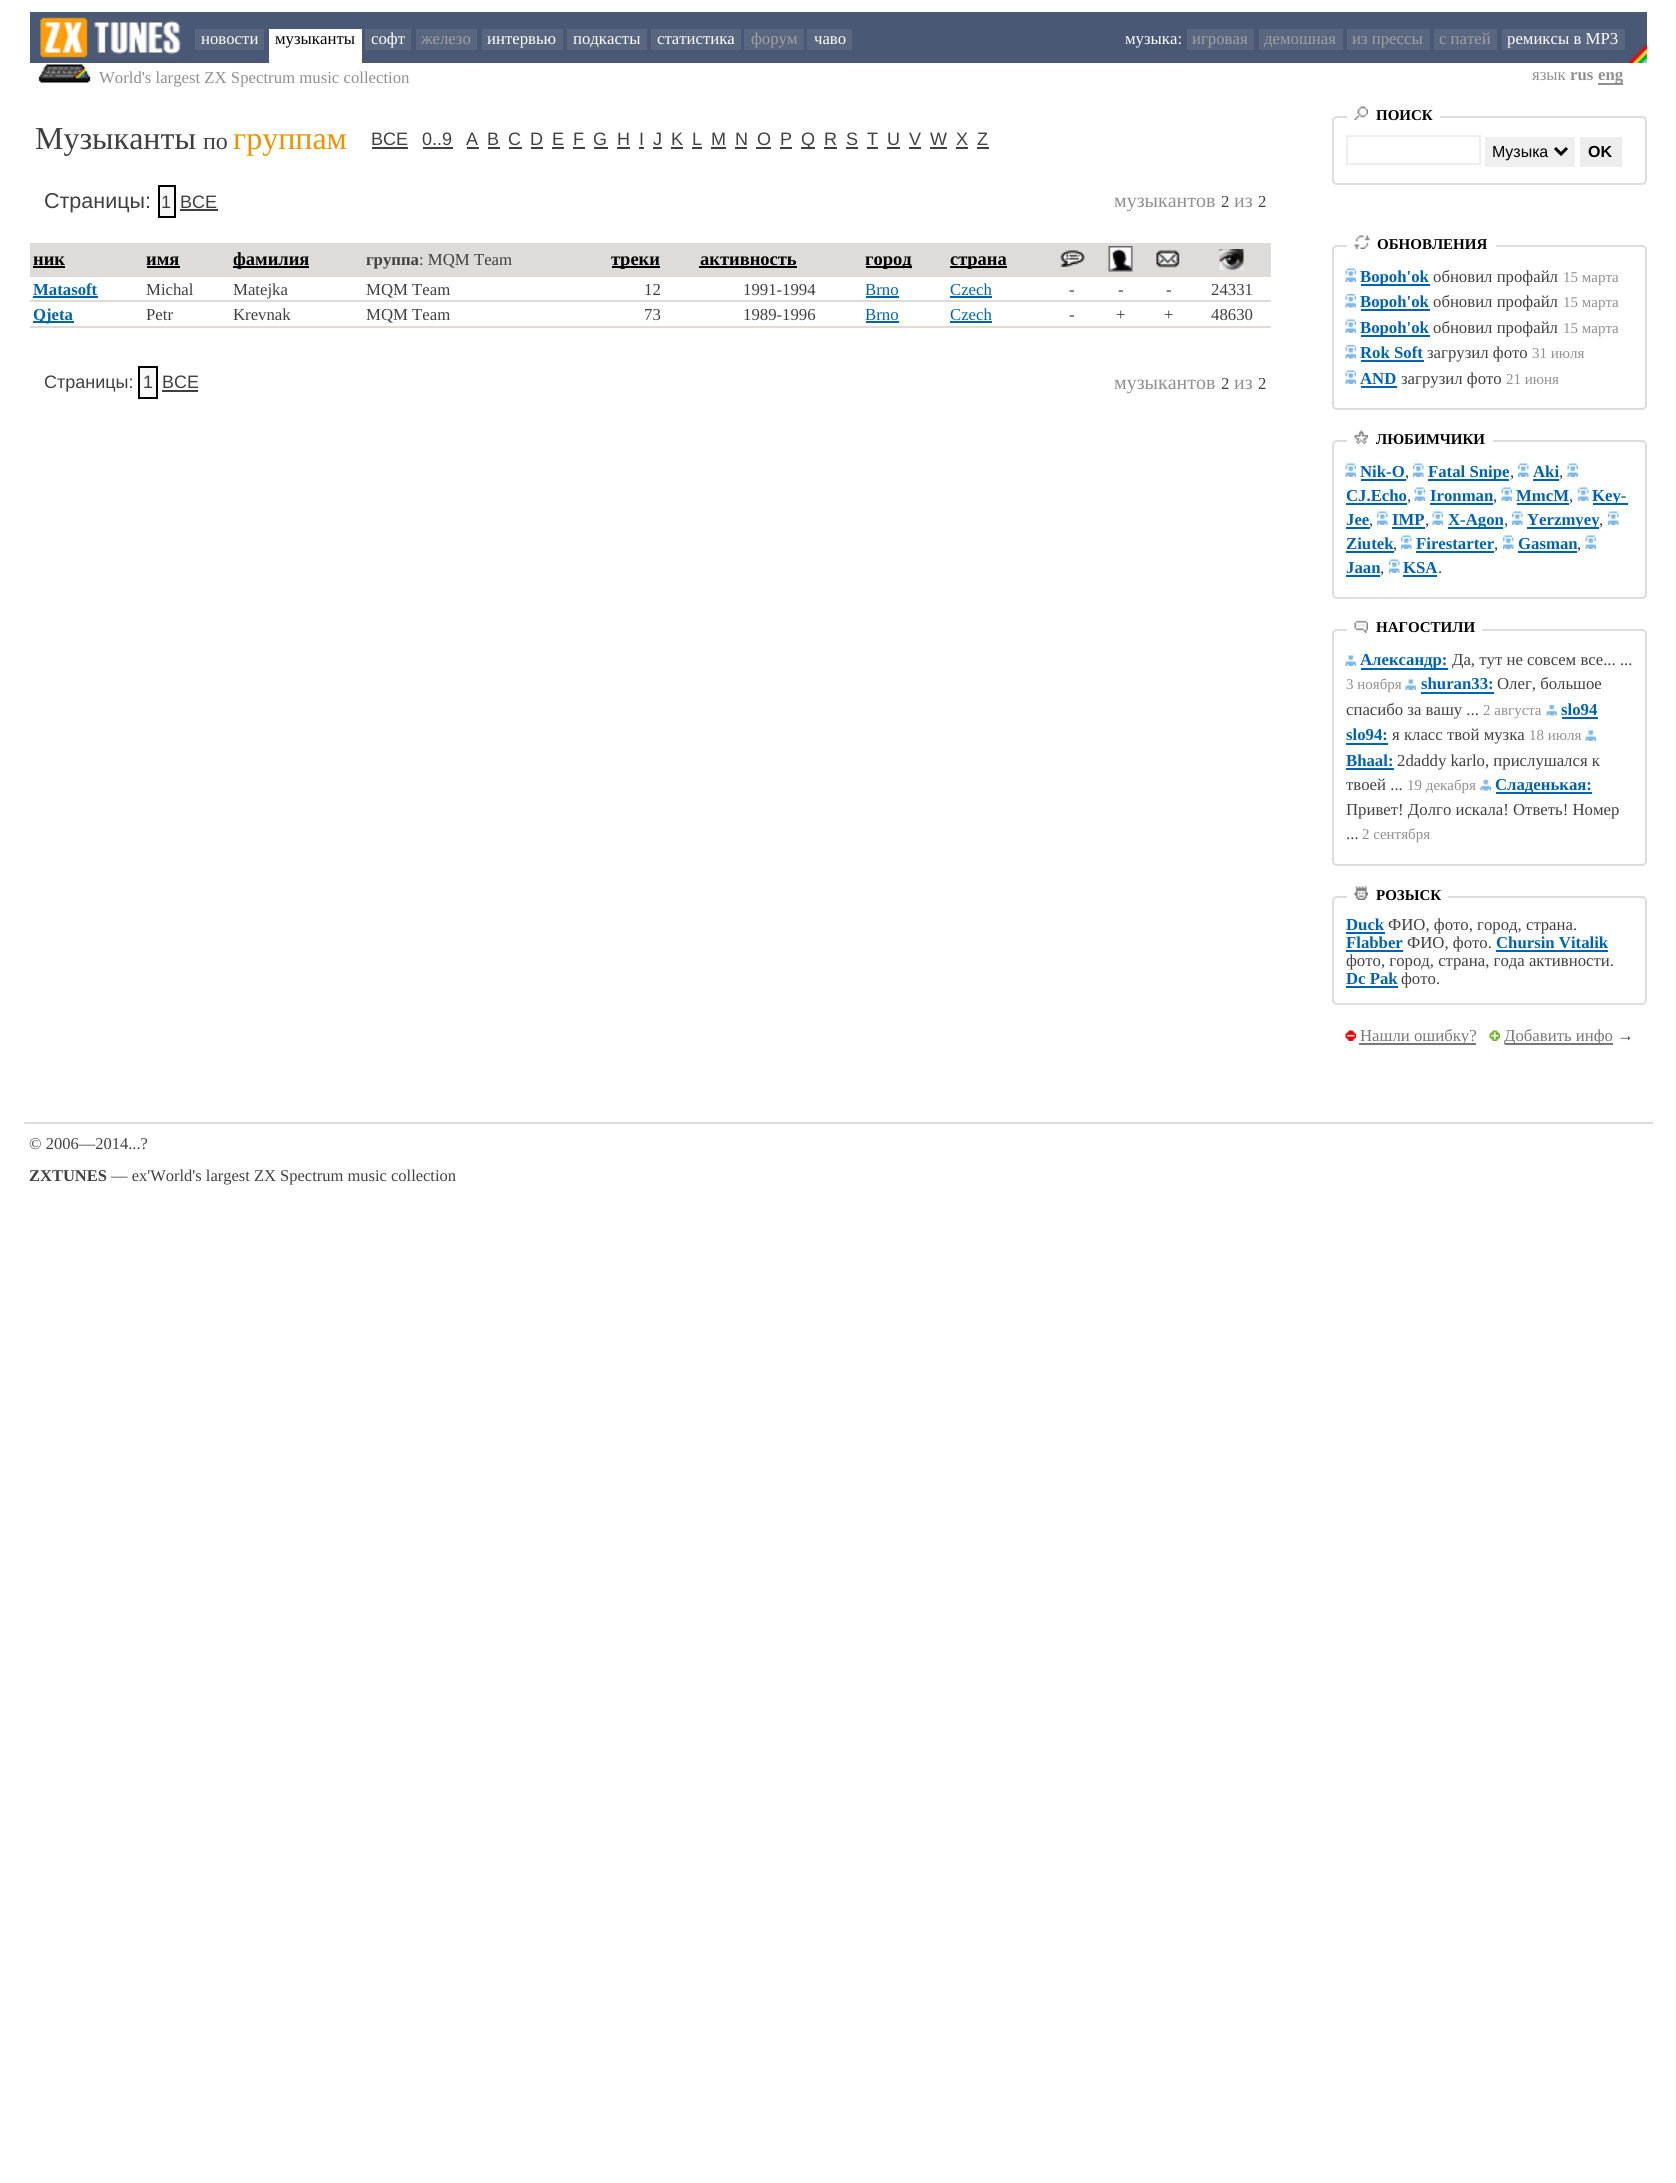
#include <cairo/cairo.h>
#include <math.h>
#include <stddef.h>


static void rounded_rect(cairo_t *cr, double x, double y, double w, double h, double r) {
  cairo_new_sub_path(cr);
  cairo_arc(cr, x + w - r, y + h - r, r, 0, M_PI / 2);
  cairo_arc(cr, x + r, y + h - r, r, M_PI / 2, M_PI);
  cairo_arc(cr, x + r, y + r, r, M_PI, 1.5 * M_PI);
  cairo_arc(cr, x + w - r, y + r, r, 1.5 * M_PI, 2 * M_PI);
  cairo_close_path(cr);
}

static void draw_image(cairo_t *cr, const char *path, double x, double y, double w, double h) {
  cairo_surface_t *image = cairo_image_surface_create_from_png(path);
  cairo_save(cr);
  cairo_set_source_surface(cr, image, x, y);
  cairo_rectangle(cr, x, y, w, h);
  cairo_fill(cr);
  cairo_restore(cr);
  cairo_surface_destroy(image);
}

static void draw(cairo_t *cr) {
  cairo_set_source_rgb(cr, 1, 1, 1);
  cairo_paint(cr);
  cairo_set_source_rgb(cr, 73 / 255.0, 88 / 255.0, 116 / 255.0);
  cairo_rectangle(cr, 30, 12, 1617, 51);
  cairo_fill(cr);
  draw_image(cr, "images/1.png", 40, 17, 141, 41);
  cairo_set_source_rgb(cr, 89 / 255.0, 102 / 255.0, 128 / 255.0);
  cairo_rectangle(cr, 195, 29, 69, 21);
  cairo_fill(cr);
  cairo_set_source_rgb(cr, 1, 1, 1);
  cairo_rectangle(cr, 269, 29, 93, 34);
  cairo_fill(cr);
  cairo_set_source_rgb(cr, 89 / 255.0, 102 / 255.0, 128 / 255.0);
  cairo_rectangle(cr, 365, 29, 46, 21);
  cairo_fill(cr);
  cairo_rectangle(cr, 416, 29, 61, 21);
  cairo_fill(cr);
  cairo_rectangle(cr, 482, 29, 81, 21);
  cairo_fill(cr);
  cairo_rectangle(cr, 567, 29, 80, 21);
  cairo_fill(cr);
  cairo_rectangle(cr, 651, 29, 90, 21);
  cairo_fill(cr);
  cairo_rectangle(cr, 744, 29, 60, 21);
  cairo_fill(cr);
  cairo_rectangle(cr, 807, 29, 45, 21);
  cairo_fill(cr);
  cairo_rectangle(cr, 1187, 29, 67, 21);
  cairo_fill(cr);
  cairo_rectangle(cr, 1259, 29, 84, 21);
  cairo_fill(cr);
  cairo_rectangle(cr, 1347, 29, 83, 21);
  cairo_fill(cr);
  cairo_rectangle(cr, 1434, 29, 63, 21);
  cairo_fill(cr);
  cairo_rectangle(cr, 1502, 29, 123, 21);
  cairo_fill(cr);
  draw_image(cr, "images/2.png", 1629, 44, 18, 19);
  draw_image(cr, "images/3.png", 38, 64, 53, 19);
  cairo_set_source_rgb(cr, 144 / 255.0, 144 / 255.0, 144 / 255.0);
  cairo_rectangle(cr, 1598, 83, 25, 2);
  cairo_fill(cr);
  cairo_set_source_rgb(cr, 64 / 255.0, 64 / 255.0, 64 / 255.0);
  cairo_rectangle(cr, 372, 147, 36, 2);
  cairo_fill(cr);
  cairo_rectangle(cr, 423, 147, 30, 2);
  cairo_fill(cr);
  cairo_rectangle(cr, 467, 147, 12, 2);
  cairo_fill(cr);
  cairo_rectangle(cr, 488, 147, 12, 2);
  cairo_fill(cr);
  cairo_rectangle(cr, 509, 147, 13, 2);
  cairo_fill(cr);
  cairo_rectangle(cr, 531, 147, 12, 2);
  cairo_fill(cr);
  cairo_rectangle(cr, 552, 147, 12, 2);
  cairo_fill(cr);
  cairo_rectangle(cr, 573, 147, 12, 2);
  cairo_fill(cr);
  cairo_rectangle(cr, 594, 147, 14, 2);
  cairo_fill(cr);
  cairo_rectangle(cr, 617, 147, 13, 2);
  cairo_fill(cr);
  cairo_rectangle(cr, 639, 147, 5, 2);
  cairo_fill(cr);
  cairo_rectangle(cr, 653, 147, 9, 2);
  cairo_fill(cr);
  cairo_rectangle(cr, 671, 147, 12, 2);
  cairo_fill(cr);
  cairo_rectangle(cr, 692, 147, 10, 2);
  cairo_fill(cr);
  cairo_rectangle(cr, 711, 147, 15, 2);
  cairo_fill(cr);
  cairo_rectangle(cr, 735, 147, 12, 2);
  cairo_fill(cr);
  cairo_rectangle(cr, 756, 147, 15, 2);
  cairo_fill(cr);
  cairo_rectangle(cr, 780, 147, 12, 2);
  cairo_fill(cr);
  cairo_rectangle(cr, 801, 147, 14, 2);
  cairo_fill(cr);
  cairo_rectangle(cr, 824, 147, 13, 2);
  cairo_fill(cr);
  cairo_rectangle(cr, 846, 147, 12, 2);
  cairo_fill(cr);
  cairo_rectangle(cr, 867, 147, 11, 2);
  cairo_fill(cr);
  cairo_rectangle(cr, 887, 147, 13, 2);
  cairo_fill(cr);
  cairo_rectangle(cr, 909, 147, 12, 2);
  cairo_fill(cr);
  cairo_rectangle(cr, 930, 147, 17, 2);
  cairo_fill(cr);
  cairo_rectangle(cr, 956, 147, 12, 2);
  cairo_fill(cr);
  cairo_rectangle(cr, 977, 147, 12, 2);
  cairo_fill(cr);
  cairo_set_source_rgb(cr, 247 / 255.0, 247 / 255.0, 247 / 255.0);
  cairo_rectangle(cr, 159, 186, 16, 31);
  cairo_fill_preserve(cr);
  cairo_set_source_rgb(cr, 0, 0, 0);
  cairo_stroke(cr);
  cairo_set_source_rgb(cr, 64 / 255.0, 64 / 255.0, 64 / 255.0);
  cairo_rectangle(cr, 180, 209, 38, 2);
  cairo_fill(cr);
  cairo_set_source_rgb(cr, 222 / 255.0, 219 / 255.0, 216 / 255.0);
  cairo_rectangle(cr, 30, 243, 1241, 32);
  cairo_fill(cr);
  cairo_rectangle(cr, 30, 275, 1241, 2);
  cairo_fill(cr);
  cairo_set_source_rgb(cr, 0, 0, 0);
  cairo_rectangle(cr, 33, 266, 32, 2);
  cairo_fill(cr);
  cairo_rectangle(cr, 147, 266, 33, 2);
  cairo_fill(cr);
  cairo_rectangle(cr, 233, 266, 76, 2);
  cairo_fill(cr);
  cairo_rectangle(cr, 612, 266, 48, 2);
  cairo_fill(cr);
  cairo_rectangle(cr, 699, 266, 98, 2);
  cairo_fill(cr);
  cairo_rectangle(cr, 866, 266, 46, 2);
  cairo_fill(cr);
  cairo_rectangle(cr, 950, 266, 57, 2);
  cairo_fill(cr);
  draw_image(cr, "images/4.png", 1060, 250, 25, 17);
  draw_image(cr, "images/5.png", 1108, 246, 25, 26);
  draw_image(cr, "images/6.png", 1156, 250, 24, 18);
  draw_image(cr, "images/7.png", 1219, 249, 25, 21);
  cairo_set_source_rgb(cr, 222 / 255.0, 219 / 255.0, 216 / 255.0);
  cairo_rectangle(cr, 30, 300, 1241, 2);
  cairo_fill(cr);
  cairo_set_source_rgb(cr, 0, 99 / 255.0, 176 / 255.0);
  cairo_rectangle(cr, 33, 296, 65, 2);
  cairo_fill(cr);
  cairo_rectangle(cr, 866, 296, 33, 2);
  cairo_fill(cr);
  cairo_rectangle(cr, 950, 296, 42, 2);
  cairo_fill(cr);
  cairo_set_source_rgb(cr, 222 / 255.0, 219 / 255.0, 216 / 255.0);
  cairo_rectangle(cr, 30, 326, 1241, 2);
  cairo_fill(cr);
  cairo_set_source_rgb(cr, 0, 99 / 255.0, 176 / 255.0);
  cairo_rectangle(cr, 33, 321, 41, 2);
  cairo_fill(cr);
  cairo_rectangle(cr, 866, 321, 33, 2);
  cairo_fill(cr);
  cairo_rectangle(cr, 950, 321, 42, 2);
  cairo_fill(cr);
  cairo_set_source_rgb(cr, 247 / 255.0, 247 / 255.0, 247 / 255.0);
  cairo_rectangle(cr, 139, 367, 18, 31);
  cairo_fill_preserve(cr);
  cairo_set_source_rgb(cr, 0, 0, 0);
  cairo_stroke(cr);
  cairo_set_source_rgb(cr, 64 / 255.0, 64 / 255.0, 64 / 255.0);
  cairo_rectangle(cr, 162, 390, 36, 2);
  cairo_fill(cr);
  rounded_rect(cr, 1333, 117, 313, 67, 4);
  cairo_set_source_rgb(cr, 221 / 255.0, 221 / 255.0, 221 / 255.0);
  cairo_stroke(cr);
  cairo_set_source_rgb(cr, 1, 1, 1);
  cairo_rectangle(cr, 1347, 116, 93, 2);
  cairo_fill(cr);
  draw_image(cr, "images/8.png", 1354, 106, 14, 14);
  cairo_rectangle(cr, 1347, 136, 133, 28);
  cairo_set_source_rgb(cr, 238 / 255.0, 238 / 255.0, 238 / 255.0);
  cairo_stroke(cr);
  cairo_set_source_rgb(cr, 239 / 255.0, 239 / 255.0, 239 / 255.0);
  cairo_rectangle(cr, 1485, 137, 90, 30);
  cairo_fill(cr);
  cairo_new_path(cr);
  cairo_move_to(cr, 1555, 148);
  cairo_line_to(cr, 1561, 154);
  cairo_line_to(cr, 1567, 148);
  cairo_set_source_rgb(cr, 0, 0, 0);
  cairo_set_line_width(cr, 3);
  cairo_stroke(cr);
  cairo_set_source_rgb(cr, 238 / 255.0, 238 / 255.0, 238 / 255.0);
  cairo_rectangle(cr, 1580, 137, 42, 30);
  cairo_fill(cr);
  rounded_rect(cr, 1333, 246, 313, 163, 4);
  cairo_set_source_rgb(cr, 221 / 255.0, 221 / 255.0, 221 / 255.0);
  cairo_set_line_width(cr, 2);
  cairo_stroke(cr);
  cairo_set_source_rgb(cr, 1, 1, 1);
  cairo_rectangle(cr, 1347, 245, 149, 2);
  cairo_fill(cr);
  draw_image(cr, "images/9.png", 1354, 235, 16, 14);
  draw_image(cr, "images/10.png", 1345, 268, 11, 14);
  cairo_set_source_rgb(cr, 0, 99 / 255.0, 176 / 255.0);
  cairo_rectangle(cr, 1361, 284, 69, 2);
  cairo_fill(cr);
  draw_image(cr, "images/11.png", 1345, 294, 11, 14);
  cairo_rectangle(cr, 1361, 309, 69, 2);
  cairo_fill(cr);
  draw_image(cr, "images/10.png", 1345, 319, 11, 14);
  cairo_rectangle(cr, 1361, 335, 69, 2);
  cairo_fill(cr);
  draw_image(cr, "images/11.png", 1345, 345, 11, 14);
  cairo_rectangle(cr, 1361, 360, 63, 2);
  cairo_fill(cr);
  draw_image(cr, "images/10.png", 1345, 370, 11, 14);
  cairo_rectangle(cr, 1361, 386, 36, 2);
  cairo_fill(cr);
  rounded_rect(cr, 1333, 441, 313, 157, 4);
  cairo_set_source_rgb(cr, 221 / 255.0, 221 / 255.0, 221 / 255.0);
  cairo_stroke(cr);
  cairo_set_source_rgb(cr, 1, 1, 1);
  cairo_rectangle(cr, 1347, 440, 146, 2);
  cairo_fill(cr);
  draw_image(cr, "images/12.png", 1354, 430, 14, 14);
  draw_image(cr, "images/10.png", 1345, 463, 11, 14);
  cairo_set_source_rgb(cr, 0, 99 / 255.0, 176 / 255.0);
  cairo_rectangle(cr, 1361, 479, 45, 2);
  cairo_fill(cr);
  draw_image(cr, "images/13.png", 1413, 463, 11, 14);
  cairo_rectangle(cr, 1428, 479, 81, 2);
  cairo_fill(cr);
  draw_image(cr, "images/14.png", 1518, 463, 11, 14);
  cairo_rectangle(cr, 1533, 479, 26, 2);
  cairo_fill(cr);
  draw_image(cr, "images/15.png", 1567, 463, 11, 14);
  cairo_rectangle(cr, 1346, 503, 61, 2);
  cairo_fill(cr);
  draw_image(cr, "images/10.png", 1414, 487, 11, 14);
  cairo_rectangle(cr, 1430, 503, 63, 2);
  cairo_fill(cr);
  draw_image(cr, "images/10.png", 1501, 487, 11, 14);
  cairo_rectangle(cr, 1517, 503, 52, 2);
  cairo_fill(cr);
  draw_image(cr, "images/13.png", 1578, 487, 11, 14);
  cairo_rectangle(cr, 1593, 503, 35, 2);
  cairo_fill(cr);
  cairo_rectangle(cr, 1346, 527, 24, 2);
  cairo_fill(cr);
  draw_image(cr, "images/13.png", 1377, 511, 11, 14);
  cairo_rectangle(cr, 1392, 527, 33, 2);
  cairo_fill(cr);
  draw_image(cr, "images/10.png", 1432, 511, 11, 14);
  cairo_rectangle(cr, 1448, 527, 55, 2);
  cairo_fill(cr);
  draw_image(cr, "images/16.png", 1512, 511, 11, 14);
  cairo_rectangle(cr, 1527, 527, 72, 2);
  cairo_fill(cr);
  draw_image(cr, "images/13.png", 1608, 511, 11, 14);
  cairo_rectangle(cr, 1346, 551, 48, 2);
  cairo_fill(cr);
  draw_image(cr, "images/13.png", 1401, 535, 11, 14);
  cairo_rectangle(cr, 1416, 551, 78, 2);
  cairo_fill(cr);
  draw_image(cr, "images/16.png", 1503, 535, 11, 14);
  cairo_rectangle(cr, 1518, 551, 59, 2);
  cairo_fill(cr);
  draw_image(cr, "images/15.png", 1585, 535, 11, 14);
  cairo_rectangle(cr, 1346, 575, 34, 2);
  cairo_fill(cr);
  draw_image(cr, "images/13.png", 1389, 559, 11, 14);
  cairo_rectangle(cr, 1403, 575, 34, 2);
  cairo_fill(cr);
  rounded_rect(cr, 1333, 630, 313, 235, 4);
  cairo_set_source_rgb(cr, 221 / 255.0, 221 / 255.0, 221 / 255.0);
  cairo_stroke(cr);
  cairo_set_source_rgb(cr, 1, 1, 1);
  cairo_rectangle(cr, 1347, 629, 135, 2);
  cairo_fill(cr);
  draw_image(cr, "images/17.png", 1354, 620, 14, 13);
  draw_image(cr, "images/18.png", 1345, 655, 11, 11);
  cairo_set_source_rgb(cr, 0, 99 / 255.0, 176 / 255.0);
  cairo_rectangle(cr, 1361, 668, 87, 2);
  cairo_fill(cr);
  draw_image(cr, "images/18.png", 1405, 679, 11, 11);
  cairo_rectangle(cr, 1421, 692, 73, 2);
  cairo_fill(cr);
  draw_image(cr, "images/19.png", 1546, 704, 11, 12);
  cairo_rectangle(cr, 1562, 717, 36, 2);
  cairo_fill(cr);
  cairo_rectangle(cr, 1346, 743, 42, 2);
  cairo_fill(cr);
  draw_image(cr, "images/20.png", 1585, 730, 11, 11);
  cairo_rectangle(cr, 1346, 768, 48, 2);
  cairo_fill(cr);
  draw_image(cr, "images/21.png", 1480, 779, 11, 12);
  cairo_rectangle(cr, 1496, 792, 96, 2);
  cairo_fill(cr);
  rounded_rect(cr, 1333, 897, 313, 107, 4);
  cairo_set_source_rgb(cr, 221 / 255.0, 221 / 255.0, 221 / 255.0);
  cairo_stroke(cr);
  cairo_set_source_rgb(cr, 1, 1, 1);
  cairo_rectangle(cr, 1347, 896, 101, 2);
  cairo_fill(cr);
  draw_image(cr, "images/22.png", 1354, 886, 14, 14);
  cairo_set_source_rgb(cr, 0, 99 / 255.0, 176 / 255.0);
  cairo_rectangle(cr, 1346, 932, 39, 2);
  cairo_fill(cr);
  cairo_rectangle(cr, 1346, 950, 57, 2);
  cairo_fill(cr);
  cairo_rectangle(cr, 1496, 950, 112, 2);
  cairo_fill(cr);
  cairo_rectangle(cr, 1346, 986, 52, 2);
  cairo_fill(cr);
  draw_image(cr, "images/23.png", 1345, 1030, 11, 11);
  cairo_set_source_rgb(cr, 119 / 255.0, 119 / 255.0, 119 / 255.0);
  cairo_rectangle(cr, 1359, 1043, 117, 2);
  cairo_fill(cr);
  draw_image(cr, "images/24.png", 1489, 1030, 11, 11);
  cairo_rectangle(cr, 1505, 1043, 108, 2);
  cairo_fill(cr);
  cairo_set_source_rgb(cr, 222 / 255.0, 219 / 255.0, 216 / 255.0);
  cairo_rectangle(cr, 24, 1122, 1629, 2);
  cairo_fill(cr);
  cairo_select_font_face(cr, "Liberation Serif", CAIRO_FONT_SLANT_NORMAL, CAIRO_FONT_WEIGHT_NORMAL);
  cairo_set_font_size(cr, 16.75);
  cairo_set_source_rgb(cr, 1, 1, 1);
  cairo_move_to(cr, 201, 44);
  cairo_show_text(cr, "новости");
  cairo_set_source_rgb(cr, 0, 0, 0);
  cairo_move_to(cr, 275, 44);
  cairo_show_text(cr, "музыканты");
  cairo_set_source_rgb(cr, 1, 1, 1);
  cairo_move_to(cr, 371, 44);
  cairo_show_text(cr, "софт");
  cairo_set_source_rgb(cr, 160 / 255.0, 160 / 255.0, 160 / 255.0);
  cairo_move_to(cr, 421, 44);
  cairo_show_text(cr, "железо");
  cairo_set_source_rgb(cr, 1, 1, 1);
  cairo_move_to(cr, 487, 44);
  cairo_show_text(cr, "интервью");
  cairo_move_to(cr, 573, 44);
  cairo_show_text(cr, "подкасты");
  cairo_move_to(cr, 657, 44);
  cairo_show_text(cr, "статистика");
  cairo_set_source_rgb(cr, 160 / 255.0, 160 / 255.0, 160 / 255.0);
  cairo_move_to(cr, 751, 44);
  cairo_show_text(cr, "форум");
  cairo_set_source_rgb(cr, 1, 1, 1);
  cairo_move_to(cr, 814, 44);
  cairo_show_text(cr, "чаво");
  cairo_move_to(cr, 1125, 44);
  cairo_show_text(cr, "музыка:");
  cairo_set_source_rgb(cr, 160 / 255.0, 160 / 255.0, 160 / 255.0);
  cairo_move_to(cr, 1192, 44);
  cairo_show_text(cr, "игровая");
  cairo_move_to(cr, 1264, 44);
  cairo_show_text(cr, "демошная");
  cairo_move_to(cr, 1352, 44);
  cairo_show_text(cr, "из прессы");
  cairo_move_to(cr, 1439, 44);
  cairo_show_text(cr, "с патей");
  cairo_set_source_rgb(cr, 1, 1, 1);
  cairo_move_to(cr, 1507, 44);
  cairo_show_text(cr, "ремиксы в MP3");
  cairo_set_source_rgb(cr, 144 / 255.0, 144 / 255.0, 144 / 255.0);
  cairo_move_to(cr, 99, 83);
  cairo_show_text(cr, "World's largest ZX Spectrum music collection");
  cairo_move_to(cr, 1532, 80);
  cairo_show_text(cr, "язык");
  cairo_select_font_face(cr, "Liberation Serif", CAIRO_FONT_SLANT_NORMAL, CAIRO_FONT_WEIGHT_BOLD);
  cairo_move_to(cr, 1570, 80);
  cairo_show_text(cr, "rus");
  cairo_move_to(cr, 1598, 80);
  cairo_show_text(cr, "eng");
  cairo_select_font_face(cr, "Liberation Serif", CAIRO_FONT_SLANT_NORMAL, CAIRO_FONT_WEIGHT_NORMAL);
  cairo_set_font_size(cr, 32);
  cairo_set_source_rgb(cr, 64 / 255.0, 64 / 255.0, 64 / 255.0);
  cairo_move_to(cr, 35, 149);
  cairo_show_text(cr, "Музыканты");
  cairo_set_font_size(cr, 24);
  cairo_move_to(cr, 203, 149);
  cairo_show_text(cr, "по");
  cairo_set_font_size(cr, 32);
  cairo_set_source_rgb(cr, 240 / 255.0, 146 / 255.0, 0);
  cairo_move_to(cr, 233, 149);
  cairo_show_text(cr, "группам");
  cairo_select_font_face(cr, "Liberation Sans", CAIRO_FONT_SLANT_NORMAL, CAIRO_FONT_WEIGHT_NORMAL);
  cairo_set_font_size(cr, 18);
  cairo_set_source_rgb(cr, 64 / 255.0, 64 / 255.0, 64 / 255.0);
  cairo_move_to(cr, 371, 145);
  cairo_show_text(cr, "ВСЕ");
  cairo_move_to(cr, 422, 145);
  cairo_show_text(cr, "0..9");
  cairo_move_to(cr, 466, 145);
  cairo_show_text(cr, "A");
  cairo_move_to(cr, 487, 145);
  cairo_show_text(cr, "B");
  cairo_move_to(cr, 508, 145);
  cairo_show_text(cr, "C");
  cairo_move_to(cr, 530, 145);
  cairo_show_text(cr, "D");
  cairo_move_to(cr, 552, 145);
  cairo_show_text(cr, "E");
  cairo_move_to(cr, 573, 145);
  cairo_show_text(cr, "F");
  cairo_move_to(cr, 593, 145);
  cairo_show_text(cr, "G");
  cairo_move_to(cr, 617, 145);
  cairo_show_text(cr, "H");
  cairo_move_to(cr, 639, 145);
  cairo_show_text(cr, "I");
  cairo_move_to(cr, 653, 145);
  cairo_show_text(cr, "J");
  cairo_move_to(cr, 671, 145);
  cairo_show_text(cr, "K");
  cairo_move_to(cr, 692, 145);
  cairo_show_text(cr, "L");
  cairo_move_to(cr, 711, 145);
  cairo_show_text(cr, "M");
  cairo_move_to(cr, 735, 145);
  cairo_show_text(cr, "N");
  cairo_move_to(cr, 757, 145);
  cairo_show_text(cr, "O");
  cairo_move_to(cr, 780, 145);
  cairo_show_text(cr, "P");
  cairo_move_to(cr, 801, 145);
  cairo_show_text(cr, "Q");
  cairo_move_to(cr, 824, 145);
  cairo_show_text(cr, "R");
  cairo_move_to(cr, 846, 145);
  cairo_show_text(cr, "S");
  cairo_move_to(cr, 867, 145);
  cairo_show_text(cr, "T");
  cairo_move_to(cr, 887, 145);
  cairo_show_text(cr, "U");
  cairo_move_to(cr, 909, 145);
  cairo_show_text(cr, "V");
  cairo_move_to(cr, 930, 145);
  cairo_show_text(cr, "W");
  cairo_move_to(cr, 956, 145);
  cairo_show_text(cr, "X");
  cairo_move_to(cr, 977, 145);
  cairo_show_text(cr, "Z");
  cairo_set_font_size(cr, 21.5);
  cairo_move_to(cr, 44, 208);
  cairo_show_text(cr, "Страницы:");
  cairo_set_font_size(cr, 18);
  cairo_move_to(cr, 161, 208);
  cairo_show_text(cr, "1");
  cairo_move_to(cr, 180, 208);
  cairo_show_text(cr, "ВСЕ");
  cairo_select_font_face(cr, "Liberation Serif", CAIRO_FONT_SLANT_NORMAL, CAIRO_FONT_WEIGHT_NORMAL);
  cairo_set_font_size(cr, 20);
  cairo_set_source_rgb(cr, 144 / 255.0, 144 / 255.0, 144 / 255.0);
  cairo_move_to(cr, 1114, 207);
  cairo_show_text(cr, "музыкантов");
  cairo_set_font_size(cr, 16.75);
  cairo_set_source_rgb(cr, 64 / 255.0, 64 / 255.0, 64 / 255.0);
  cairo_move_to(cr, 1221, 207);
  cairo_show_text(cr, "2");
  cairo_set_font_size(cr, 20);
  cairo_set_source_rgb(cr, 144 / 255.0, 144 / 255.0, 144 / 255.0);
  cairo_move_to(cr, 1234, 207);
  cairo_show_text(cr, "из");
  cairo_set_font_size(cr, 16.75);
  cairo_set_source_rgb(cr, 64 / 255.0, 64 / 255.0, 64 / 255.0);
  cairo_move_to(cr, 1258, 207);
  cairo_show_text(cr, "2");
  cairo_select_font_face(cr, "Liberation Serif", CAIRO_FONT_SLANT_NORMAL, CAIRO_FONT_WEIGHT_BOLD);
  cairo_set_font_size(cr, 18.5);
  cairo_set_source_rgb(cr, 0, 0, 0);
  cairo_move_to(cr, 33, 265);
  cairo_show_text(cr, "ник");
  cairo_move_to(cr, 146, 265);
  cairo_show_text(cr, "имя");
  cairo_move_to(cr, 233, 265);
  cairo_show_text(cr, "фамилия");
  cairo_set_font_size(cr, 16.75);
  cairo_set_source_rgb(cr, 64 / 255.0, 64 / 255.0, 64 / 255.0);
  cairo_move_to(cr, 366, 265);
  cairo_show_text(cr, "группа");
  cairo_select_font_face(cr, "Liberation Serif", CAIRO_FONT_SLANT_NORMAL, CAIRO_FONT_WEIGHT_NORMAL);
  cairo_move_to(cr, 419, 265);
  cairo_show_text(cr, ": MQM Team");
  cairo_select_font_face(cr, "Liberation Serif", CAIRO_FONT_SLANT_NORMAL, CAIRO_FONT_WEIGHT_BOLD);
  cairo_set_font_size(cr, 18.5);
  cairo_set_source_rgb(cr, 0, 0, 0);
  cairo_move_to(cr, 611, 265);
  cairo_show_text(cr, "треки");
  cairo_move_to(cr, 700, 265);
  cairo_show_text(cr, "активность");
  cairo_move_to(cr, 865, 265);
  cairo_show_text(cr, "город");
  cairo_move_to(cr, 950, 265);
  cairo_show_text(cr, "страна");
  cairo_set_font_size(cr, 16.75);
  cairo_set_source_rgb(cr, 0, 99 / 255.0, 176 / 255.0);
  cairo_move_to(cr, 33, 295);
  cairo_show_text(cr, "Matasoft");
  cairo_select_font_face(cr, "Liberation Serif", CAIRO_FONT_SLANT_NORMAL, CAIRO_FONT_WEIGHT_NORMAL);
  cairo_set_source_rgb(cr, 64 / 255.0, 64 / 255.0, 64 / 255.0);
  cairo_move_to(cr, 146, 295);
  cairo_show_text(cr, "Michal");
  cairo_move_to(cr, 233, 295);
  cairo_show_text(cr, "Matejka");
  cairo_move_to(cr, 366, 295);
  cairo_show_text(cr, "MQM Team");
  cairo_move_to(cr, 644, 295);
  cairo_show_text(cr, "12");
  cairo_move_to(cr, 743, 295);
  cairo_show_text(cr, "1991-1994");
  cairo_set_source_rgb(cr, 0, 99 / 255.0, 176 / 255.0);
  cairo_move_to(cr, 865, 295);
  cairo_show_text(cr, "Brno");
  cairo_move_to(cr, 950, 295);
  cairo_show_text(cr, "Czech");
  cairo_set_source_rgb(cr, 64 / 255.0, 64 / 255.0, 64 / 255.0);
  cairo_move_to(cr, 1069, 295);
  cairo_show_text(cr, "-");
  cairo_move_to(cr, 1118, 295);
  cairo_show_text(cr, "-");
  cairo_move_to(cr, 1166, 295);
  cairo_show_text(cr, "-");
  cairo_move_to(cr, 1211, 295);
  cairo_show_text(cr, "24331");
  cairo_select_font_face(cr, "Liberation Serif", CAIRO_FONT_SLANT_NORMAL, CAIRO_FONT_WEIGHT_BOLD);
  cairo_set_source_rgb(cr, 0, 99 / 255.0, 176 / 255.0);
  cairo_move_to(cr, 33, 320);
  cairo_show_text(cr, "Qjeta");
  cairo_select_font_face(cr, "Liberation Serif", CAIRO_FONT_SLANT_NORMAL, CAIRO_FONT_WEIGHT_NORMAL);
  cairo_set_source_rgb(cr, 64 / 255.0, 64 / 255.0, 64 / 255.0);
  cairo_move_to(cr, 146, 320);
  cairo_show_text(cr, "Petr");
  cairo_move_to(cr, 233, 320);
  cairo_show_text(cr, "Krevnak");
  cairo_move_to(cr, 366, 320);
  cairo_show_text(cr, "MQM Team");
  cairo_move_to(cr, 644, 320);
  cairo_show_text(cr, "73");
  cairo_move_to(cr, 743, 320);
  cairo_show_text(cr, "1989-1996");
  cairo_set_source_rgb(cr, 0, 99 / 255.0, 176 / 255.0);
  cairo_move_to(cr, 865, 320);
  cairo_show_text(cr, "Brno");
  cairo_move_to(cr, 950, 320);
  cairo_show_text(cr, "Czech");
  cairo_set_source_rgb(cr, 64 / 255.0, 64 / 255.0, 64 / 255.0);
  cairo_move_to(cr, 1069, 320);
  cairo_show_text(cr, "-");
  cairo_move_to(cr, 1116, 320);
  cairo_show_text(cr, "+");
  cairo_move_to(cr, 1164, 320);
  cairo_show_text(cr, "+");
  cairo_move_to(cr, 1211, 320);
  cairo_show_text(cr, "48630");
  cairo_select_font_face(cr, "Liberation Sans", CAIRO_FONT_SLANT_NORMAL, CAIRO_FONT_WEIGHT_NORMAL);
  cairo_set_font_size(cr, 18);
  cairo_move_to(cr, 44, 388);
  cairo_show_text(cr, "Страницы:");
  cairo_move_to(cr, 143, 388);
  cairo_show_text(cr, "1");
  cairo_move_to(cr, 162, 388);
  cairo_show_text(cr, "ВСЕ");
  cairo_select_font_face(cr, "Liberation Serif", CAIRO_FONT_SLANT_NORMAL, CAIRO_FONT_WEIGHT_NORMAL);
  cairo_set_font_size(cr, 20);
  cairo_set_source_rgb(cr, 144 / 255.0, 144 / 255.0, 144 / 255.0);
  cairo_move_to(cr, 1114, 389);
  cairo_show_text(cr, "музыкантов");
  cairo_set_font_size(cr, 16.75);
  cairo_set_source_rgb(cr, 64 / 255.0, 64 / 255.0, 64 / 255.0);
  cairo_move_to(cr, 1221, 389);
  cairo_show_text(cr, "2");
  cairo_set_font_size(cr, 20);
  cairo_set_source_rgb(cr, 144 / 255.0, 144 / 255.0, 144 / 255.0);
  cairo_move_to(cr, 1234, 389);
  cairo_show_text(cr, "из");
  cairo_set_font_size(cr, 16.75);
  cairo_set_source_rgb(cr, 64 / 255.0, 64 / 255.0, 64 / 255.0);
  cairo_move_to(cr, 1258, 389);
  cairo_show_text(cr, "2");
  cairo_select_font_face(cr, "Liberation Serif", CAIRO_FONT_SLANT_NORMAL, CAIRO_FONT_WEIGHT_BOLD);
  cairo_set_font_size(cr, 15);
  cairo_set_source_rgb(cr, 0, 0, 0);
  cairo_move_to(cr, 1376, 120);
  cairo_show_text(cr, "ПОИСК");
  cairo_select_font_face(cr, "Liberation Sans", CAIRO_FONT_SLANT_NORMAL, CAIRO_FONT_WEIGHT_NORMAL);
  cairo_set_font_size(cr, 16);
  cairo_move_to(cr, 1492, 157);
  cairo_show_text(cr, "Музыка");
  cairo_select_font_face(cr, "Liberation Sans", CAIRO_FONT_SLANT_NORMAL, CAIRO_FONT_WEIGHT_BOLD);
  cairo_move_to(cr, 1588, 157);
  cairo_show_text(cr, "OK");
  cairo_select_font_face(cr, "Liberation Serif", CAIRO_FONT_SLANT_NORMAL, CAIRO_FONT_WEIGHT_BOLD);
  cairo_set_font_size(cr, 15);
  cairo_move_to(cr, 1377, 249);
  cairo_show_text(cr, "ОБНОВЛЕНИЯ");
  cairo_set_font_size(cr, 16.75);
  cairo_set_source_rgb(cr, 0, 99 / 255.0, 176 / 255.0);
  cairo_move_to(cr, 1360, 282);
  cairo_show_text(cr, "Bopoh'ok");
  cairo_select_font_face(cr, "Liberation Serif", CAIRO_FONT_SLANT_NORMAL, CAIRO_FONT_WEIGHT_NORMAL);
  cairo_set_source_rgb(cr, 64 / 255.0, 64 / 255.0, 64 / 255.0);
  cairo_move_to(cr, 1433, 282);
  cairo_show_text(cr, "обновил профайл");
  cairo_set_font_size(cr, 15);
  cairo_set_source_rgb(cr, 144 / 255.0, 144 / 255.0, 144 / 255.0);
  cairo_move_to(cr, 1563, 282);
  cairo_show_text(cr, "15 марта");
  cairo_select_font_face(cr, "Liberation Serif", CAIRO_FONT_SLANT_NORMAL, CAIRO_FONT_WEIGHT_BOLD);
  cairo_set_font_size(cr, 16.75);
  cairo_set_source_rgb(cr, 0, 99 / 255.0, 176 / 255.0);
  cairo_move_to(cr, 1360, 307);
  cairo_show_text(cr, "Bopoh'ok");
  cairo_select_font_face(cr, "Liberation Serif", CAIRO_FONT_SLANT_NORMAL, CAIRO_FONT_WEIGHT_NORMAL);
  cairo_set_source_rgb(cr, 64 / 255.0, 64 / 255.0, 64 / 255.0);
  cairo_move_to(cr, 1433, 307);
  cairo_show_text(cr, "обновил профайл");
  cairo_set_font_size(cr, 15);
  cairo_set_source_rgb(cr, 144 / 255.0, 144 / 255.0, 144 / 255.0);
  cairo_move_to(cr, 1563, 307);
  cairo_show_text(cr, "15 марта");
  cairo_select_font_face(cr, "Liberation Serif", CAIRO_FONT_SLANT_NORMAL, CAIRO_FONT_WEIGHT_BOLD);
  cairo_set_font_size(cr, 16.75);
  cairo_set_source_rgb(cr, 0, 99 / 255.0, 176 / 255.0);
  cairo_move_to(cr, 1360, 333);
  cairo_show_text(cr, "Bopoh'ok");
  cairo_select_font_face(cr, "Liberation Serif", CAIRO_FONT_SLANT_NORMAL, CAIRO_FONT_WEIGHT_NORMAL);
  cairo_set_source_rgb(cr, 64 / 255.0, 64 / 255.0, 64 / 255.0);
  cairo_move_to(cr, 1433, 333);
  cairo_show_text(cr, "обновил профайл");
  cairo_set_font_size(cr, 15);
  cairo_set_source_rgb(cr, 144 / 255.0, 144 / 255.0, 144 / 255.0);
  cairo_move_to(cr, 1563, 333);
  cairo_show_text(cr, "15 марта");
  cairo_select_font_face(cr, "Liberation Serif", CAIRO_FONT_SLANT_NORMAL, CAIRO_FONT_WEIGHT_BOLD);
  cairo_set_font_size(cr, 16.75);
  cairo_set_source_rgb(cr, 0, 99 / 255.0, 176 / 255.0);
  cairo_move_to(cr, 1360, 358);
  cairo_show_text(cr, "Rok Soft");
  cairo_select_font_face(cr, "Liberation Serif", CAIRO_FONT_SLANT_NORMAL, CAIRO_FONT_WEIGHT_NORMAL);
  cairo_set_source_rgb(cr, 64 / 255.0, 64 / 255.0, 64 / 255.0);
  cairo_move_to(cr, 1427, 358);
  cairo_show_text(cr, "загрузил фото");
  cairo_set_font_size(cr, 15);
  cairo_set_source_rgb(cr, 144 / 255.0, 144 / 255.0, 144 / 255.0);
  cairo_move_to(cr, 1532, 358);
  cairo_show_text(cr, "31 июля");
  cairo_select_font_face(cr, "Liberation Serif", CAIRO_FONT_SLANT_NORMAL, CAIRO_FONT_WEIGHT_BOLD);
  cairo_set_font_size(cr, 16.75);
  cairo_set_source_rgb(cr, 0, 99 / 255.0, 176 / 255.0);
  cairo_move_to(cr, 1360, 384);
  cairo_show_text(cr, "AND");
  cairo_select_font_face(cr, "Liberation Serif", CAIRO_FONT_SLANT_NORMAL, CAIRO_FONT_WEIGHT_NORMAL);
  cairo_set_source_rgb(cr, 64 / 255.0, 64 / 255.0, 64 / 255.0);
  cairo_move_to(cr, 1401, 384);
  cairo_show_text(cr, "загрузил фото");
  cairo_set_font_size(cr, 15);
  cairo_set_source_rgb(cr, 144 / 255.0, 144 / 255.0, 144 / 255.0);
  cairo_move_to(cr, 1506, 384);
  cairo_show_text(cr, "21 июня");
  cairo_select_font_face(cr, "Liberation Serif", CAIRO_FONT_SLANT_NORMAL, CAIRO_FONT_WEIGHT_BOLD);
  cairo_set_source_rgb(cr, 0, 0, 0);
  cairo_move_to(cr, 1376, 444);
  cairo_show_text(cr, "ЛЮБИМЧИКИ");
  cairo_set_font_size(cr, 16.75);
  cairo_set_source_rgb(cr, 0, 99 / 255.0, 176 / 255.0);
  cairo_move_to(cr, 1360, 477);
  cairo_show_text(cr, "Nik-O");
  cairo_move_to(cr, 1428, 477);
  cairo_show_text(cr, "Fatal Snipe");
  cairo_move_to(cr, 1533, 477);
  cairo_show_text(cr, "Aki");
  cairo_select_font_face(cr, "Liberation Serif", CAIRO_FONT_SLANT_NORMAL, CAIRO_FONT_WEIGHT_NORMAL);
  cairo_set_source_rgb(cr, 64 / 255.0, 64 / 255.0, 64 / 255.0);
  cairo_move_to(cr, 1405, 477);
  cairo_show_text(cr, ",");
  cairo_move_to(cr, 1510, 477);
  cairo_show_text(cr, ",");
  cairo_move_to(cr, 1559, 477);
  cairo_show_text(cr, ",");
  cairo_select_font_face(cr, "Liberation Serif", CAIRO_FONT_SLANT_NORMAL, CAIRO_FONT_WEIGHT_BOLD);
  cairo_set_source_rgb(cr, 0, 99 / 255.0, 176 / 255.0);
  cairo_move_to(cr, 1346, 501);
  cairo_show_text(cr, "CJ.Echo");
  cairo_select_font_face(cr, "Liberation Serif", CAIRO_FONT_SLANT_NORMAL, CAIRO_FONT_WEIGHT_NORMAL);
  cairo_set_source_rgb(cr, 64 / 255.0, 64 / 255.0, 64 / 255.0);
  cairo_move_to(cr, 1407, 501);
  cairo_show_text(cr, ",");
  cairo_select_font_face(cr, "Liberation Serif", CAIRO_FONT_SLANT_NORMAL, CAIRO_FONT_WEIGHT_BOLD);
  cairo_set_source_rgb(cr, 0, 99 / 255.0, 176 / 255.0);
  cairo_move_to(cr, 1430, 501);
  cairo_show_text(cr, "Ironman");
  cairo_select_font_face(cr, "Liberation Serif", CAIRO_FONT_SLANT_NORMAL, CAIRO_FONT_WEIGHT_NORMAL);
  cairo_set_source_rgb(cr, 64 / 255.0, 64 / 255.0, 64 / 255.0);
  cairo_move_to(cr, 1493, 501);
  cairo_show_text(cr, ",");
  cairo_select_font_face(cr, "Liberation Serif", CAIRO_FONT_SLANT_NORMAL, CAIRO_FONT_WEIGHT_BOLD);
  cairo_set_source_rgb(cr, 0, 99 / 255.0, 176 / 255.0);
  cairo_move_to(cr, 1516, 501);
  cairo_show_text(cr, "MmcM");
  cairo_select_font_face(cr, "Liberation Serif", CAIRO_FONT_SLANT_NORMAL, CAIRO_FONT_WEIGHT_NORMAL);
  cairo_set_source_rgb(cr, 64 / 255.0, 64 / 255.0, 64 / 255.0);
  cairo_move_to(cr, 1569, 501);
  cairo_show_text(cr, ",");
  cairo_select_font_face(cr, "Liberation Serif", CAIRO_FONT_SLANT_NORMAL, CAIRO_FONT_WEIGHT_BOLD);
  cairo_set_source_rgb(cr, 0, 99 / 255.0, 176 / 255.0);
  cairo_move_to(cr, 1592, 501);
  cairo_show_text(cr, "Key-");
  cairo_move_to(cr, 1346, 525);
  cairo_show_text(cr, "Jee");
  cairo_select_font_face(cr, "Liberation Serif", CAIRO_FONT_SLANT_NORMAL, CAIRO_FONT_WEIGHT_NORMAL);
  cairo_set_source_rgb(cr, 64 / 255.0, 64 / 255.0, 64 / 255.0);
  cairo_move_to(cr, 1369, 525);
  cairo_show_text(cr, ",");
  cairo_select_font_face(cr, "Liberation Serif", CAIRO_FONT_SLANT_NORMAL, CAIRO_FONT_WEIGHT_BOLD);
  cairo_set_source_rgb(cr, 0, 99 / 255.0, 176 / 255.0);
  cairo_move_to(cr, 1392, 525);
  cairo_show_text(cr, "IMP");
  cairo_select_font_face(cr, "Liberation Serif", CAIRO_FONT_SLANT_NORMAL, CAIRO_FONT_WEIGHT_NORMAL);
  cairo_set_source_rgb(cr, 64 / 255.0, 64 / 255.0, 64 / 255.0);
  cairo_move_to(cr, 1425, 525);
  cairo_show_text(cr, ",");
  cairo_select_font_face(cr, "Liberation Serif", CAIRO_FONT_SLANT_NORMAL, CAIRO_FONT_WEIGHT_BOLD);
  cairo_set_source_rgb(cr, 0, 99 / 255.0, 176 / 255.0);
  cairo_move_to(cr, 1448, 525);
  cairo_show_text(cr, "X-Agon");
  cairo_select_font_face(cr, "Liberation Serif", CAIRO_FONT_SLANT_NORMAL, CAIRO_FONT_WEIGHT_NORMAL);
  cairo_set_source_rgb(cr, 64 / 255.0, 64 / 255.0, 64 / 255.0);
  cairo_move_to(cr, 1504, 525);
  cairo_show_text(cr, ",");
  cairo_select_font_face(cr, "Liberation Serif", CAIRO_FONT_SLANT_NORMAL, CAIRO_FONT_WEIGHT_BOLD);
  cairo_set_source_rgb(cr, 0, 99 / 255.0, 176 / 255.0);
  cairo_move_to(cr, 1527, 525);
  cairo_show_text(cr, "Yerzmyey");
  cairo_select_font_face(cr, "Liberation Serif", CAIRO_FONT_SLANT_NORMAL, CAIRO_FONT_WEIGHT_NORMAL);
  cairo_set_source_rgb(cr, 64 / 255.0, 64 / 255.0, 64 / 255.0);
  cairo_move_to(cr, 1599, 525);
  cairo_show_text(cr, ",");
  cairo_select_font_face(cr, "Liberation Serif", CAIRO_FONT_SLANT_NORMAL, CAIRO_FONT_WEIGHT_BOLD);
  cairo_set_source_rgb(cr, 0, 99 / 255.0, 176 / 255.0);
  cairo_move_to(cr, 1346, 549);
  cairo_show_text(cr, "Ziutek");
  cairo_select_font_face(cr, "Liberation Serif", CAIRO_FONT_SLANT_NORMAL, CAIRO_FONT_WEIGHT_NORMAL);
  cairo_set_source_rgb(cr, 64 / 255.0, 64 / 255.0, 64 / 255.0);
  cairo_move_to(cr, 1393, 549);
  cairo_show_text(cr, ",");
  cairo_select_font_face(cr, "Liberation Serif", CAIRO_FONT_SLANT_NORMAL, CAIRO_FONT_WEIGHT_BOLD);
  cairo_set_source_rgb(cr, 0, 99 / 255.0, 176 / 255.0);
  cairo_move_to(cr, 1416, 549);
  cairo_show_text(cr, "Firestarter");
  cairo_select_font_face(cr, "Liberation Serif", CAIRO_FONT_SLANT_NORMAL, CAIRO_FONT_WEIGHT_NORMAL);
  cairo_set_source_rgb(cr, 64 / 255.0, 64 / 255.0, 64 / 255.0);
  cairo_move_to(cr, 1494, 549);
  cairo_show_text(cr, ",");
  cairo_select_font_face(cr, "Liberation Serif", CAIRO_FONT_SLANT_NORMAL, CAIRO_FONT_WEIGHT_BOLD);
  cairo_set_source_rgb(cr, 0, 99 / 255.0, 176 / 255.0);
  cairo_move_to(cr, 1518, 549);
  cairo_show_text(cr, "Gasman");
  cairo_select_font_face(cr, "Liberation Serif", CAIRO_FONT_SLANT_NORMAL, CAIRO_FONT_WEIGHT_NORMAL);
  cairo_set_source_rgb(cr, 64 / 255.0, 64 / 255.0, 64 / 255.0);
  cairo_move_to(cr, 1577, 549);
  cairo_show_text(cr, ",");
  cairo_select_font_face(cr, "Liberation Serif", CAIRO_FONT_SLANT_NORMAL, CAIRO_FONT_WEIGHT_BOLD);
  cairo_set_source_rgb(cr, 0, 99 / 255.0, 176 / 255.0);
  cairo_move_to(cr, 1346, 573);
  cairo_show_text(cr, "Jaan");
  cairo_select_font_face(cr, "Liberation Serif", CAIRO_FONT_SLANT_NORMAL, CAIRO_FONT_WEIGHT_NORMAL);
  cairo_set_source_rgb(cr, 64 / 255.0, 64 / 255.0, 64 / 255.0);
  cairo_move_to(cr, 1380, 573);
  cairo_show_text(cr, ",");
  cairo_select_font_face(cr, "Liberation Serif", CAIRO_FONT_SLANT_NORMAL, CAIRO_FONT_WEIGHT_BOLD);
  cairo_set_source_rgb(cr, 0, 99 / 255.0, 176 / 255.0);
  cairo_move_to(cr, 1403, 573);
  cairo_show_text(cr, "KSA");
  cairo_select_font_face(cr, "Liberation Serif", CAIRO_FONT_SLANT_NORMAL, CAIRO_FONT_WEIGHT_NORMAL);
  cairo_set_source_rgb(cr, 64 / 255.0, 64 / 255.0, 64 / 255.0);
  cairo_move_to(cr, 1438, 573);
  cairo_show_text(cr, ".");
  cairo_select_font_face(cr, "Liberation Serif", CAIRO_FONT_SLANT_NORMAL, CAIRO_FONT_WEIGHT_BOLD);
  cairo_set_font_size(cr, 15);
  cairo_set_source_rgb(cr, 0, 0, 0);
  cairo_move_to(cr, 1376, 632);
  cairo_show_text(cr, "НАГОСТИЛИ");
  cairo_set_font_size(cr, 16.75);
  cairo_set_source_rgb(cr, 0, 99 / 255.0, 176 / 255.0);
  cairo_move_to(cr, 1360, 665);
  cairo_show_text(cr, "Александр:");
  cairo_select_font_face(cr, "Liberation Serif", CAIRO_FONT_SLANT_NORMAL, CAIRO_FONT_WEIGHT_NORMAL);
  cairo_set_source_rgb(cr, 64 / 255.0, 64 / 255.0, 64 / 255.0);
  cairo_move_to(cr, 1452, 665);
  cairo_show_text(cr, "Да, тут не совсем все... ...");
  cairo_set_font_size(cr, 15);
  cairo_set_source_rgb(cr, 144 / 255.0, 144 / 255.0, 144 / 255.0);
  cairo_move_to(cr, 1346, 689);
  cairo_show_text(cr, "3 ноября");
  cairo_select_font_face(cr, "Liberation Serif", CAIRO_FONT_SLANT_NORMAL, CAIRO_FONT_WEIGHT_BOLD);
  cairo_set_font_size(cr, 16.75);
  cairo_set_source_rgb(cr, 0, 99 / 255.0, 176 / 255.0);
  cairo_move_to(cr, 1421, 689);
  cairo_show_text(cr, "shuran33:");
  cairo_select_font_face(cr, "Liberation Serif", CAIRO_FONT_SLANT_NORMAL, CAIRO_FONT_WEIGHT_NORMAL);
  cairo_set_source_rgb(cr, 64 / 255.0, 64 / 255.0, 64 / 255.0);
  cairo_move_to(cr, 1497, 689);
  cairo_show_text(cr, "Олег, большое");
  cairo_move_to(cr, 1346, 715);
  cairo_show_text(cr, "спасибо за вашу ...");
  cairo_set_font_size(cr, 15);
  cairo_set_source_rgb(cr, 144 / 255.0, 144 / 255.0, 144 / 255.0);
  cairo_move_to(cr, 1483, 715);
  cairo_show_text(cr, "2 августа");
  cairo_select_font_face(cr, "Liberation Serif", CAIRO_FONT_SLANT_NORMAL, CAIRO_FONT_WEIGHT_BOLD);
  cairo_set_font_size(cr, 16.75);
  cairo_set_source_rgb(cr, 0, 99 / 255.0, 176 / 255.0);
  cairo_move_to(cr, 1561, 715);
  cairo_show_text(cr, "slo94");
  cairo_move_to(cr, 1346, 740);
  cairo_show_text(cr, "slo94:");
  cairo_select_font_face(cr, "Liberation Serif", CAIRO_FONT_SLANT_NORMAL, CAIRO_FONT_WEIGHT_NORMAL);
  cairo_set_source_rgb(cr, 64 / 255.0, 64 / 255.0, 64 / 255.0);
  cairo_move_to(cr, 1392, 740);
  cairo_show_text(cr, "я класс твой музка");
  cairo_set_font_size(cr, 15);
  cairo_set_source_rgb(cr, 144 / 255.0, 144 / 255.0, 144 / 255.0);
  cairo_move_to(cr, 1529, 740);
  cairo_show_text(cr, "18 июля");
  cairo_select_font_face(cr, "Liberation Serif", CAIRO_FONT_SLANT_NORMAL, CAIRO_FONT_WEIGHT_BOLD);
  cairo_set_font_size(cr, 16.75);
  cairo_set_source_rgb(cr, 0, 99 / 255.0, 176 / 255.0);
  cairo_move_to(cr, 1346, 766);
  cairo_show_text(cr, "Bhaal:");
  cairo_select_font_face(cr, "Liberation Serif", CAIRO_FONT_SLANT_NORMAL, CAIRO_FONT_WEIGHT_NORMAL);
  cairo_set_source_rgb(cr, 64 / 255.0, 64 / 255.0, 64 / 255.0);
  cairo_move_to(cr, 1397, 766);
  cairo_show_text(cr, "2daddy karlo, прислушался к");
  cairo_move_to(cr, 1346, 790);
  cairo_show_text(cr, "твоей ...");
  cairo_set_font_size(cr, 15);
  cairo_set_source_rgb(cr, 144 / 255.0, 144 / 255.0, 144 / 255.0);
  cairo_move_to(cr, 1407, 790);
  cairo_show_text(cr, "19 декабря");
  cairo_select_font_face(cr, "Liberation Serif", CAIRO_FONT_SLANT_NORMAL, CAIRO_FONT_WEIGHT_BOLD);
  cairo_set_font_size(cr, 16.75);
  cairo_set_source_rgb(cr, 0, 99 / 255.0, 176 / 255.0);
  cairo_move_to(cr, 1495, 790);
  cairo_show_text(cr, "Сладенькая:");
  cairo_select_font_face(cr, "Liberation Serif", CAIRO_FONT_SLANT_NORMAL, CAIRO_FONT_WEIGHT_NORMAL);
  cairo_set_source_rgb(cr, 64 / 255.0, 64 / 255.0, 64 / 255.0);
  cairo_move_to(cr, 1346, 815);
  cairo_show_text(cr, "Привет! Долго искала! Ответь! Номер");
  cairo_move_to(cr, 1346, 839);
  cairo_show_text(cr, "...");
  cairo_set_font_size(cr, 15);
  cairo_set_source_rgb(cr, 144 / 255.0, 144 / 255.0, 144 / 255.0);
  cairo_move_to(cr, 1362, 839);
  cairo_show_text(cr, "2 сентября");
  cairo_select_font_face(cr, "Liberation Serif", CAIRO_FONT_SLANT_NORMAL, CAIRO_FONT_WEIGHT_BOLD);
  cairo_set_source_rgb(cr, 0, 0, 0);
  cairo_move_to(cr, 1376, 900);
  cairo_show_text(cr, "РОЗЫСК");
  cairo_set_font_size(cr, 16.75);
  cairo_set_source_rgb(cr, 0, 99 / 255.0, 176 / 255.0);
  cairo_move_to(cr, 1346, 930);
  cairo_show_text(cr, "Duck");
  cairo_select_font_face(cr, "Liberation Serif", CAIRO_FONT_SLANT_NORMAL, CAIRO_FONT_WEIGHT_NORMAL);
  cairo_set_source_rgb(cr, 64 / 255.0, 64 / 255.0, 64 / 255.0);
  cairo_move_to(cr, 1388, 930);
  cairo_show_text(cr, "ФИО, фото, город, страна.");
  cairo_select_font_face(cr, "Liberation Serif", CAIRO_FONT_SLANT_NORMAL, CAIRO_FONT_WEIGHT_BOLD);
  cairo_set_source_rgb(cr, 0, 99 / 255.0, 176 / 255.0);
  cairo_move_to(cr, 1346, 948);
  cairo_show_text(cr, "Flabber");
  cairo_select_font_face(cr, "Liberation Serif", CAIRO_FONT_SLANT_NORMAL, CAIRO_FONT_WEIGHT_NORMAL);
  cairo_set_source_rgb(cr, 64 / 255.0, 64 / 255.0, 64 / 255.0);
  cairo_move_to(cr, 1407, 948);
  cairo_show_text(cr, "ФИО, фото.");
  cairo_select_font_face(cr, "Liberation Serif", CAIRO_FONT_SLANT_NORMAL, CAIRO_FONT_WEIGHT_BOLD);
  cairo_set_source_rgb(cr, 0, 99 / 255.0, 176 / 255.0);
  cairo_move_to(cr, 1496, 948);
  cairo_show_text(cr, "Chursin Vitalik");
  cairo_select_font_face(cr, "Liberation Serif", CAIRO_FONT_SLANT_NORMAL, CAIRO_FONT_WEIGHT_NORMAL);
  cairo_set_source_rgb(cr, 64 / 255.0, 64 / 255.0, 64 / 255.0);
  cairo_move_to(cr, 1346, 966);
  cairo_show_text(cr, "фото, город, страна, года активности.");
  cairo_select_font_face(cr, "Liberation Serif", CAIRO_FONT_SLANT_NORMAL, CAIRO_FONT_WEIGHT_BOLD);
  cairo_set_source_rgb(cr, 0, 99 / 255.0, 176 / 255.0);
  cairo_move_to(cr, 1346, 984);
  cairo_show_text(cr, "Dc Pak");
  cairo_select_font_face(cr, "Liberation Serif", CAIRO_FONT_SLANT_NORMAL, CAIRO_FONT_WEIGHT_NORMAL);
  cairo_set_source_rgb(cr, 64 / 255.0, 64 / 255.0, 64 / 255.0);
  cairo_move_to(cr, 1401, 984);
  cairo_show_text(cr, "фото.");
  cairo_set_source_rgb(cr, 119 / 255.0, 119 / 255.0, 119 / 255.0);
  cairo_move_to(cr, 1360, 1041);
  cairo_show_text(cr, "Нашли ошибку?");
  cairo_move_to(cr, 1504, 1041);
  cairo_show_text(cr, "Добавить инфо");
  cairo_set_source_rgb(cr, 64 / 255.0, 64 / 255.0, 64 / 255.0);
  cairo_move_to(cr, 1617, 1041);
  cairo_show_text(cr, "→");
  cairo_set_font_size(cr, 16.5);
  cairo_move_to(cr, 29, 1149);
  cairo_show_text(cr, "© 2006—2014...?");
  cairo_select_font_face(cr, "Liberation Serif", CAIRO_FONT_SLANT_NORMAL, CAIRO_FONT_WEIGHT_BOLD);
  cairo_move_to(cr, 29, 1181);
  cairo_show_text(cr, "ZXTUNES");
  cairo_select_font_face(cr, "Liberation Serif", CAIRO_FONT_SLANT_NORMAL, CAIRO_FONT_WEIGHT_NORMAL);
  cairo_move_to(cr, 111, 1181);
  cairo_show_text(cr, "— ex'World's largest ZX Spectrum music collection");
}

int main(void) {
  cairo_surface_t *surface = cairo_image_surface_create(CAIRO_FORMAT_RGB24, 1676, 2183);
  cairo_t *cr = cairo_create(surface);
  cairo_font_options_t *options = cairo_font_options_create();
  cairo_font_options_set_hint_metrics(options, CAIRO_HINT_METRICS_OFF);
  cairo_font_options_set_hint_style(options, CAIRO_HINT_STYLE_NONE);
  cairo_set_font_options(cr, options);
  cairo_set_miter_limit(cr, 4);
  draw(cr);
  cairo_surface_write_to_png(surface, "out.png");
  cairo_font_options_destroy(options);
  cairo_destroy(cr);
  cairo_surface_destroy(surface);
  return 0;
}
